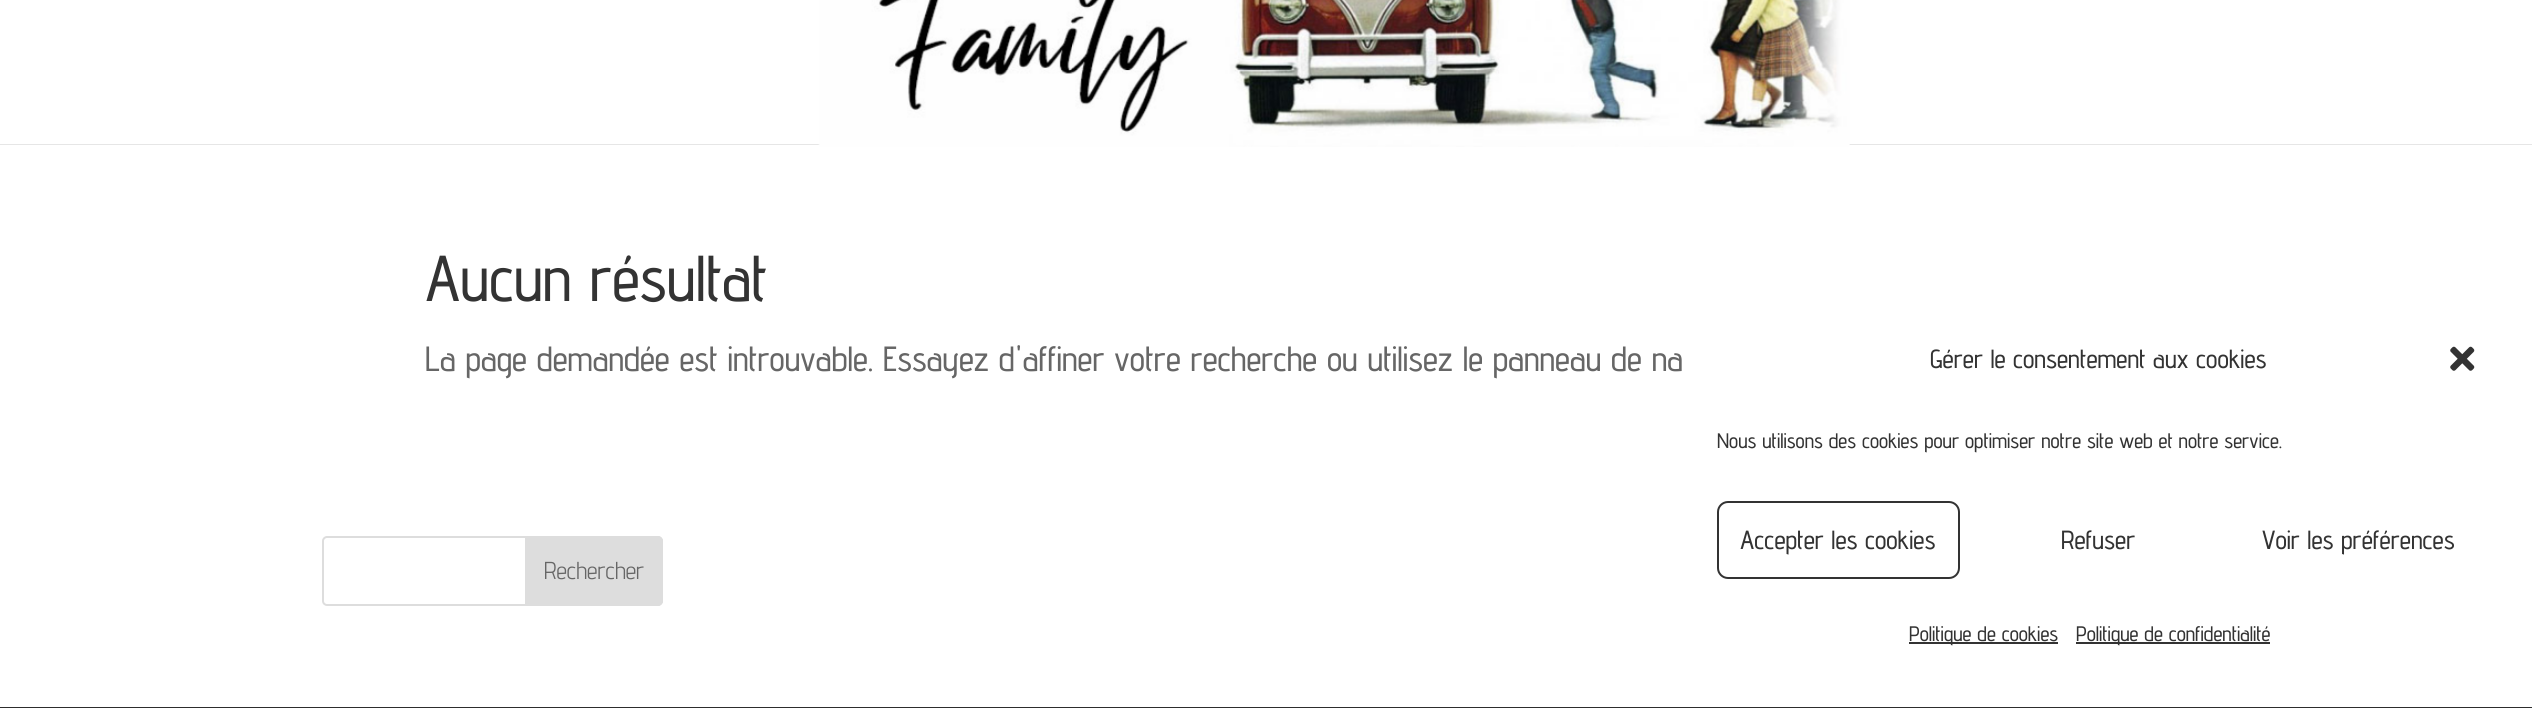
#include <cairo/cairo.h>
#include <math.h>
#include <stddef.h>


static void rounded_rect(cairo_t *cr, double x, double y, double w, double h, double r) {
  cairo_new_sub_path(cr);
  cairo_arc(cr, x + w - r, y + h - r, r, 0, M_PI / 2);
  cairo_arc(cr, x + r, y + h - r, r, M_PI / 2, M_PI);
  cairo_arc(cr, x + r, y + r, r, M_PI, 1.5 * M_PI);
  cairo_arc(cr, x + w - r, y + r, r, 1.5 * M_PI, 2 * M_PI);
  cairo_close_path(cr);
}

static void draw_image(cairo_t *cr, const char *path, double x, double y, double w, double h) {
  cairo_surface_t *image = cairo_image_surface_create_from_png(path);
  cairo_save(cr);
  cairo_set_source_surface(cr, image, x, y);
  cairo_rectangle(cr, x, y, w, h);
  cairo_fill(cr);
  cairo_restore(cr);
  cairo_surface_destroy(image);
}

static void draw(cairo_t *cr) {
  cairo_set_source_rgb(cr, 1, 1, 1);
  cairo_paint(cr);
  cairo_set_source_rgb(cr, 230 / 255.0, 230 / 255.0, 230 / 255.0);
  cairo_rectangle(cr, 0, 144, 2532, 1);
  cairo_fill(cr);
  draw_image(cr, "images/1.png", 818, 0, 1032, 147);
  rounded_rect(cr, 323, 537, 339, 68, 4);
  cairo_set_source_rgb(cr, 221 / 255.0, 221 / 255.0, 221 / 255.0);
  cairo_stroke(cr);
  cairo_new_path(cr);
  cairo_move_to(cr, 526, 537);
  cairo_line_to(cr, 658, 537);
  cairo_curve_to(cr, 660, 537, 662, 539, 662, 541);
  cairo_line_to(cr, 662, 601);
  cairo_curve_to(cr, 662, 603, 660, 605, 658, 605);
  cairo_line_to(cr, 526, 605);
  cairo_close_path(cr);
  cairo_fill_preserve(cr);
  cairo_stroke(cr);
  cairo_set_source_rgb(cr, 45 / 255.0, 45 / 255.0, 45 / 255.0);
  cairo_rectangle(cr, 0, 707, 2532, 1);
  cairo_fill(cr);
  draw_image(cr, "images/2.png", 2450, 346, 25, 25);
  rounded_rect(cr, 1718, 502, 241, 76, 10);
  cairo_set_source_rgb(cr, 51 / 255.0, 51 / 255.0, 51 / 255.0);
  cairo_stroke(cr);
  cairo_rectangle(cr, 1909, 642, 149, 2);
  cairo_fill(cr);
  cairo_rectangle(cr, 2076, 642, 194, 2);
  cairo_fill(cr);
  cairo_select_font_face(cr, "Advent Pro Medium", CAIRO_FONT_SLANT_NORMAL, CAIRO_FONT_WEIGHT_NORMAL);
  cairo_set_font_size(cr, 64.75);
  cairo_move_to(cr, 425, 301);
  cairo_show_text(cr, "Aucun résultat");
  cairo_set_font_size(cr, 35);
  cairo_set_source_rgb(cr, 102 / 255.0, 102 / 255.0, 102 / 255.0);
  cairo_move_to(cr, 425, 371);
  cairo_show_text(cr, "La page demandée est introuvable. Essayez d'affiner votre recherche ou utilisez le panneau de na");
  cairo_select_font_face(cr, "Advent Pro", CAIRO_FONT_SLANT_NORMAL, CAIRO_FONT_WEIGHT_NORMAL);
  cairo_set_font_size(cr, 24.5);
  cairo_move_to(cr, 544, 579);
  cairo_show_text(cr, "Rechercher");
  cairo_select_font_face(cr, "Advent Pro Medium", CAIRO_FONT_SLANT_NORMAL, CAIRO_FONT_WEIGHT_NORMAL);
  cairo_set_font_size(cr, 26.25);
  cairo_set_source_rgb(cr, 51 / 255.0, 51 / 255.0, 51 / 255.0);
  cairo_move_to(cr, 1930, 368);
  cairo_show_text(cr, "Gérer le consentement aux cookies");
  cairo_set_font_size(cr, 21);
  cairo_move_to(cr, 1717, 448);
  cairo_show_text(cr, "Nous utilisons des cookies pour optimiser notre site web et notre service.");
  cairo_set_font_size(cr, 26.25);
  cairo_move_to(cr, 1740, 549);
  cairo_show_text(cr, "Accepter les cookies");
  cairo_move_to(cr, 2061, 549);
  cairo_show_text(cr, "Refuser");
  cairo_move_to(cr, 2262, 549);
  cairo_show_text(cr, "Voir les préférences");
  cairo_set_font_size(cr, 21);
  cairo_move_to(cr, 1909, 641);
  cairo_show_text(cr, "Politique de cookies");
  cairo_move_to(cr, 2076, 641);
  cairo_show_text(cr, "Politique de confidentialité");
}

int main(void) {
  cairo_surface_t *surface = cairo_image_surface_create(CAIRO_FORMAT_RGB24, 2532, 708);
  cairo_t *cr = cairo_create(surface);
  cairo_font_options_t *options = cairo_font_options_create();
  cairo_font_options_set_hint_metrics(options, CAIRO_HINT_METRICS_OFF);
  cairo_font_options_set_hint_style(options, CAIRO_HINT_STYLE_NONE);
  cairo_set_font_options(cr, options);
  cairo_set_miter_limit(cr, 4);
  draw(cr);
  cairo_surface_write_to_png(surface, "out.png");
  cairo_font_options_destroy(options);
  cairo_destroy(cr);
  cairo_surface_destroy(surface);
  return 0;
}
